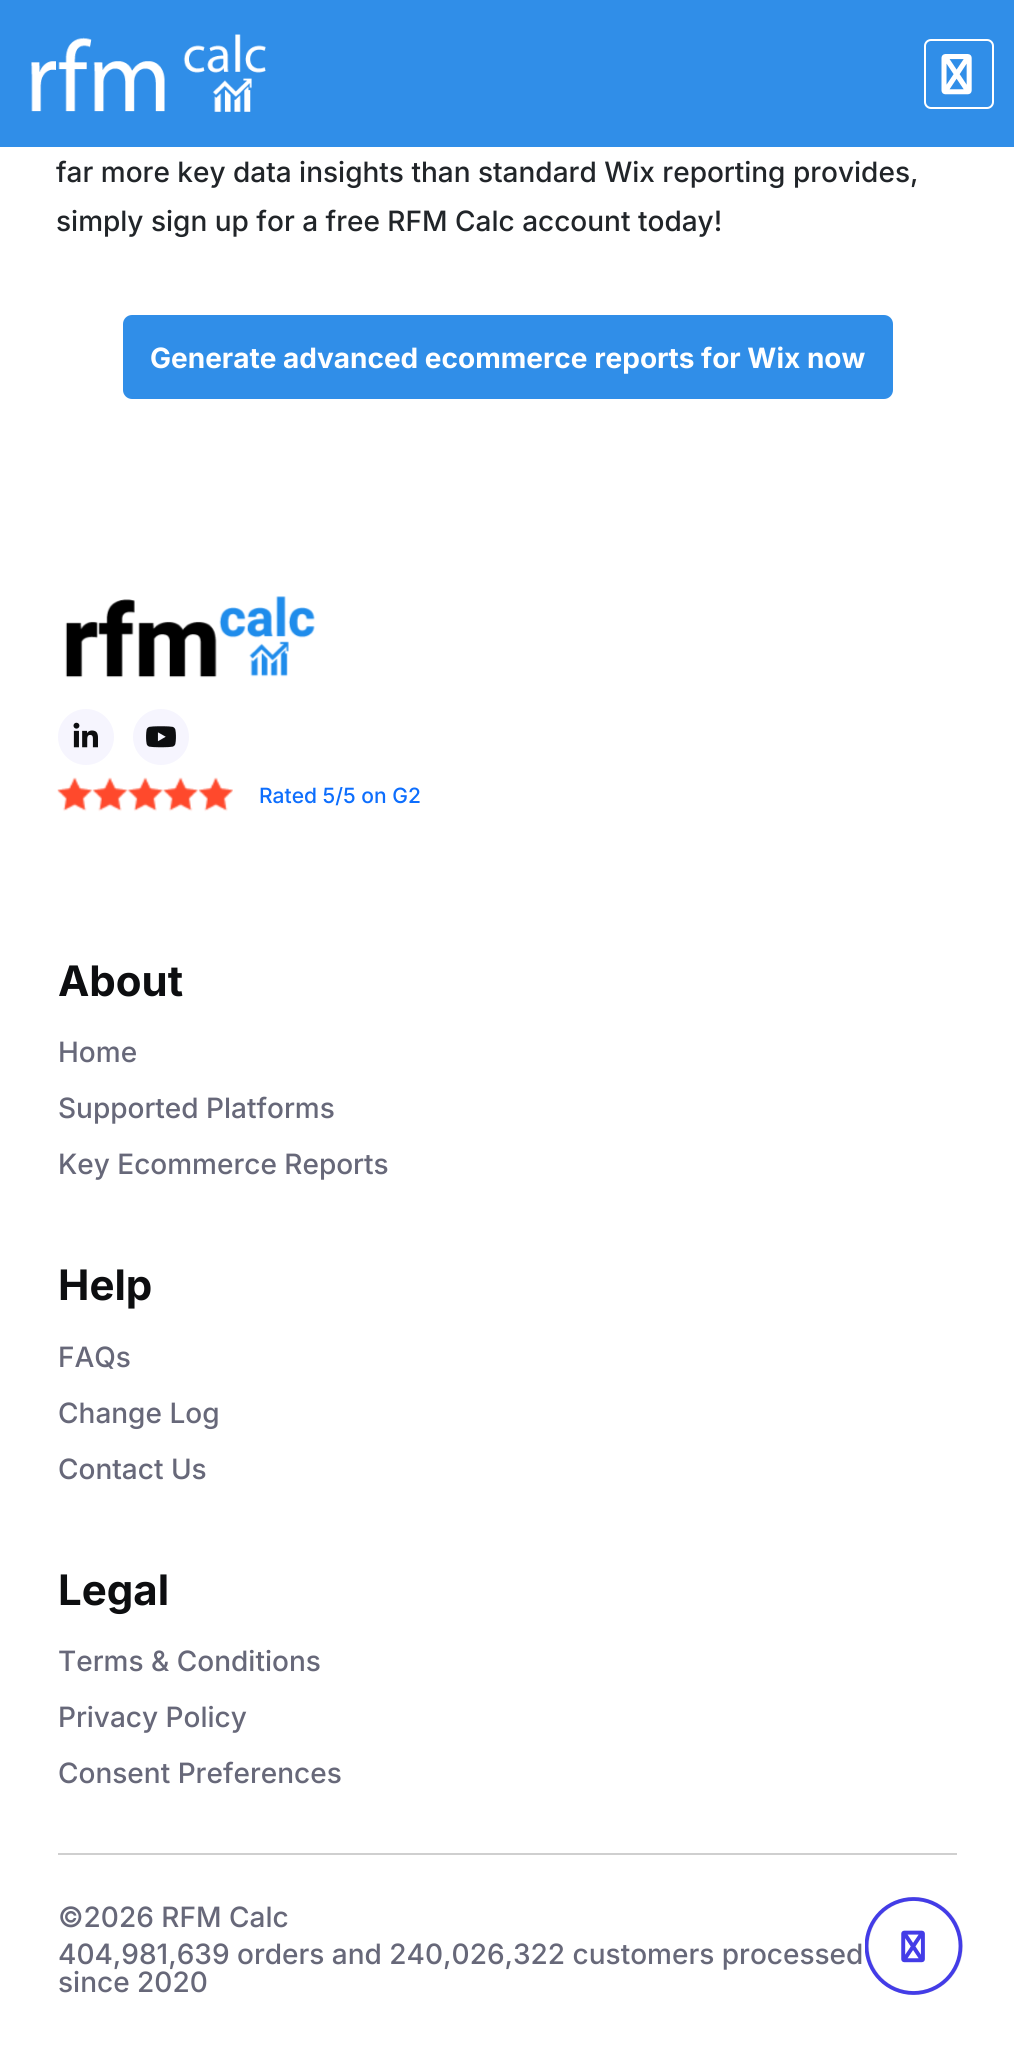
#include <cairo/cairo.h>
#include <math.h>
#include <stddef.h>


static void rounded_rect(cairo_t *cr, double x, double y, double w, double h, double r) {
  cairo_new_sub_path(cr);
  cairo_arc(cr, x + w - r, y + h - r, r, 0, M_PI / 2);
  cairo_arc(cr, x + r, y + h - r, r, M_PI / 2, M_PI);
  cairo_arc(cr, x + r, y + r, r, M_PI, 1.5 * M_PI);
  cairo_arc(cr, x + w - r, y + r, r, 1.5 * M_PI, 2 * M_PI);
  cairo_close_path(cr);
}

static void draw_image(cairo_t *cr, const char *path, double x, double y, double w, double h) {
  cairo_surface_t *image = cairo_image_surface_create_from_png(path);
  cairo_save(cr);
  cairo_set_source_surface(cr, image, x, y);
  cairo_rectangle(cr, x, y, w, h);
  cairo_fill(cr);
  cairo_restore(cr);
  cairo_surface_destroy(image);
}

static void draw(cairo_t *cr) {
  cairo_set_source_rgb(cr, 1, 1, 1);
  cairo_paint(cr);
  cairo_set_source_rgb(cr, 48 / 255.0, 142 / 255.0, 232 / 255.0);
  cairo_rectangle(cr, 0, 0, 1014, 147);
  cairo_fill(cr);
  draw_image(cr, "images/1.png", 31, 34, 235, 78);
  rounded_rect(cr, 925, 40, 68, 68, 6);
  cairo_set_source_rgb(cr, 1, 1, 1);
  cairo_stroke(cr);
  draw_image(cr, "images/2.png", 941, 54, 31, 41);
  cairo_set_source_rgb(cr, 48 / 255.0, 142 / 255.0, 232 / 255.0);
  rounded_rect(cr, 123, 315, 770, 84, 9);
  cairo_fill(cr);
  draw_image(cr, "images/3.png", 65, 596, 250, 82);
  cairo_set_source_rgb(cr, 246 / 255.0, 245 / 255.0, 254 / 255.0);
  cairo_arc(cr, 86, 737, 28, 0, 2 * M_PI);
  cairo_fill(cr);
  draw_image(cr, "images/4.png", 73, 722, 25, 26);
  cairo_arc(cr, 161, 737, 28, 0, 2 * M_PI);
  cairo_fill(cr);
  draw_image(cr, "images/5.png", 146, 726, 30, 22);
  draw_image(cr, "images/6.png", 57, 777, 176, 35);
  cairo_set_source_rgb(cr, 207 / 255.0, 207 / 255.0, 207 / 255.0);
  cairo_rectangle(cr, 58, 1853, 899, 2);
  cairo_fill(cr);
  cairo_arc(cr, 914, 1946, 47, 0, 2 * M_PI);
  cairo_set_source_rgb(cr, 230 / 255.0, 230 / 255.0, 230 / 255.0);
  cairo_set_line_width(cr, 4);
  cairo_stroke(cr);
  cairo_save(cr);
  cairo_rectangle(cr, 865, 1897, 98, 98);
  cairo_clip(cr);
  cairo_new_path(cr);
  cairo_move_to(cr, 913.5, 1899);
  cairo_curve_to(cr, 939.5, 1899, 960.5, 1920, 960.5, 1946);
  cairo_curve_to(cr, 960.5, 1972, 939.5, 1993, 913.5, 1993);
  cairo_curve_to(cr, 887.5, 1993, 866.5, 1972, 866.5, 1946);
  cairo_curve_to(cr, 866.5, 1920, 887.5, 1899, 913.5, 1899);
  cairo_set_source_rgb(cr, 67 / 255.0, 60 / 255.0, 231 / 255.0);
  cairo_set_line_width(cr, 3.8);
  cairo_stroke(cr);
  cairo_restore(cr);
  draw_image(cr, "images/7.png", 901, 1930, 24, 33);
  cairo_select_font_face(cr, "Inter Medium", CAIRO_FONT_SLANT_NORMAL, CAIRO_FONT_WEIGHT_NORMAL);
  cairo_set_font_size(cr, 28);
  cairo_set_source_rgb(cr, 33 / 255.0, 37 / 255.0, 41 / 255.0);
  cairo_move_to(cr, 56, 182);
  cairo_show_text(cr, "far more key data insights than standard Wix reporting provides,");
  cairo_move_to(cr, 56, 231);
  cairo_show_text(cr, "simply sign up for a free RFM Calc account today!");
  cairo_select_font_face(cr, "Inter", CAIRO_FONT_SLANT_NORMAL, CAIRO_FONT_WEIGHT_BOLD);
  cairo_set_source_rgb(cr, 1, 1, 1);
  cairo_move_to(cr, 150, 368);
  cairo_show_text(cr, "Generate advanced ecommerce reports for Wix now");
  cairo_select_font_face(cr, "Inter Medium", CAIRO_FONT_SLANT_NORMAL, CAIRO_FONT_WEIGHT_NORMAL);
  cairo_set_font_size(cr, 21);
  cairo_set_source_rgb(cr, 13 / 255.0, 110 / 255.0, 253 / 255.0);
  cairo_move_to(cr, 259, 803);
  cairo_show_text(cr, "Rated 5/5 on G2");
  cairo_select_font_face(cr, "Inter", CAIRO_FONT_SLANT_NORMAL, CAIRO_FONT_WEIGHT_BOLD);
  cairo_set_font_size(cr, 42);
  cairo_set_source_rgb(cr, 13 / 255.0, 14 / 255.0, 16 / 255.0);
  cairo_move_to(cr, 58, 996);
  cairo_show_text(cr, "About");
  cairo_select_font_face(cr, "Inter Medium", CAIRO_FONT_SLANT_NORMAL, CAIRO_FONT_WEIGHT_NORMAL);
  cairo_set_font_size(cr, 28);
  cairo_set_source_rgb(cr, 103 / 255.0, 104 / 255.0, 121 / 255.0);
  cairo_move_to(cr, 58, 1062);
  cairo_show_text(cr, "Home");
  cairo_move_to(cr, 58, 1118);
  cairo_show_text(cr, "Supported Platforms");
  cairo_move_to(cr, 58, 1174);
  cairo_show_text(cr, "Key Ecommerce Reports");
  cairo_select_font_face(cr, "Inter", CAIRO_FONT_SLANT_NORMAL, CAIRO_FONT_WEIGHT_BOLD);
  cairo_set_font_size(cr, 42);
  cairo_set_source_rgb(cr, 13 / 255.0, 14 / 255.0, 16 / 255.0);
  cairo_move_to(cr, 58, 1300);
  cairo_show_text(cr, "Help");
  cairo_select_font_face(cr, "Inter Medium", CAIRO_FONT_SLANT_NORMAL, CAIRO_FONT_WEIGHT_NORMAL);
  cairo_set_font_size(cr, 28);
  cairo_set_source_rgb(cr, 103 / 255.0, 104 / 255.0, 121 / 255.0);
  cairo_move_to(cr, 58, 1367);
  cairo_show_text(cr, "FAQs");
  cairo_move_to(cr, 58, 1423);
  cairo_show_text(cr, "Change Log");
  cairo_move_to(cr, 58, 1479);
  cairo_show_text(cr, "Contact Us");
  cairo_select_font_face(cr, "Inter", CAIRO_FONT_SLANT_NORMAL, CAIRO_FONT_WEIGHT_BOLD);
  cairo_set_font_size(cr, 42);
  cairo_set_source_rgb(cr, 13 / 255.0, 14 / 255.0, 16 / 255.0);
  cairo_move_to(cr, 58, 1605);
  cairo_show_text(cr, "Legal");
  cairo_select_font_face(cr, "Inter Medium", CAIRO_FONT_SLANT_NORMAL, CAIRO_FONT_WEIGHT_NORMAL);
  cairo_set_font_size(cr, 28);
  cairo_set_source_rgb(cr, 103 / 255.0, 104 / 255.0, 121 / 255.0);
  cairo_move_to(cr, 58, 1671);
  cairo_show_text(cr, "Terms & Conditions");
  cairo_move_to(cr, 58, 1727);
  cairo_show_text(cr, "Privacy Policy");
  cairo_move_to(cr, 58, 1783);
  cairo_show_text(cr, "Consent Preferences");
  cairo_move_to(cr, 58, 1927);
  cairo_show_text(cr, "©2026 RFM Calc");
  cairo_move_to(cr, 58, 1964);
  cairo_show_text(cr, "404,981,639 orders and 240,026,322 customers processed");
  cairo_move_to(cr, 58, 1992);
  cairo_show_text(cr, "since 2020");
}

int main(void) {
  cairo_surface_t *surface = cairo_image_surface_create(CAIRO_FORMAT_RGB24, 1014, 2046);
  cairo_t *cr = cairo_create(surface);
  cairo_font_options_t *options = cairo_font_options_create();
  cairo_font_options_set_hint_metrics(options, CAIRO_HINT_METRICS_OFF);
  cairo_font_options_set_hint_style(options, CAIRO_HINT_STYLE_NONE);
  cairo_set_font_options(cr, options);
  cairo_set_miter_limit(cr, 4);
  draw(cr);
  cairo_surface_write_to_png(surface, "out.png");
  cairo_font_options_destroy(options);
  cairo_destroy(cr);
  cairo_surface_destroy(surface);
  return 0;
}
